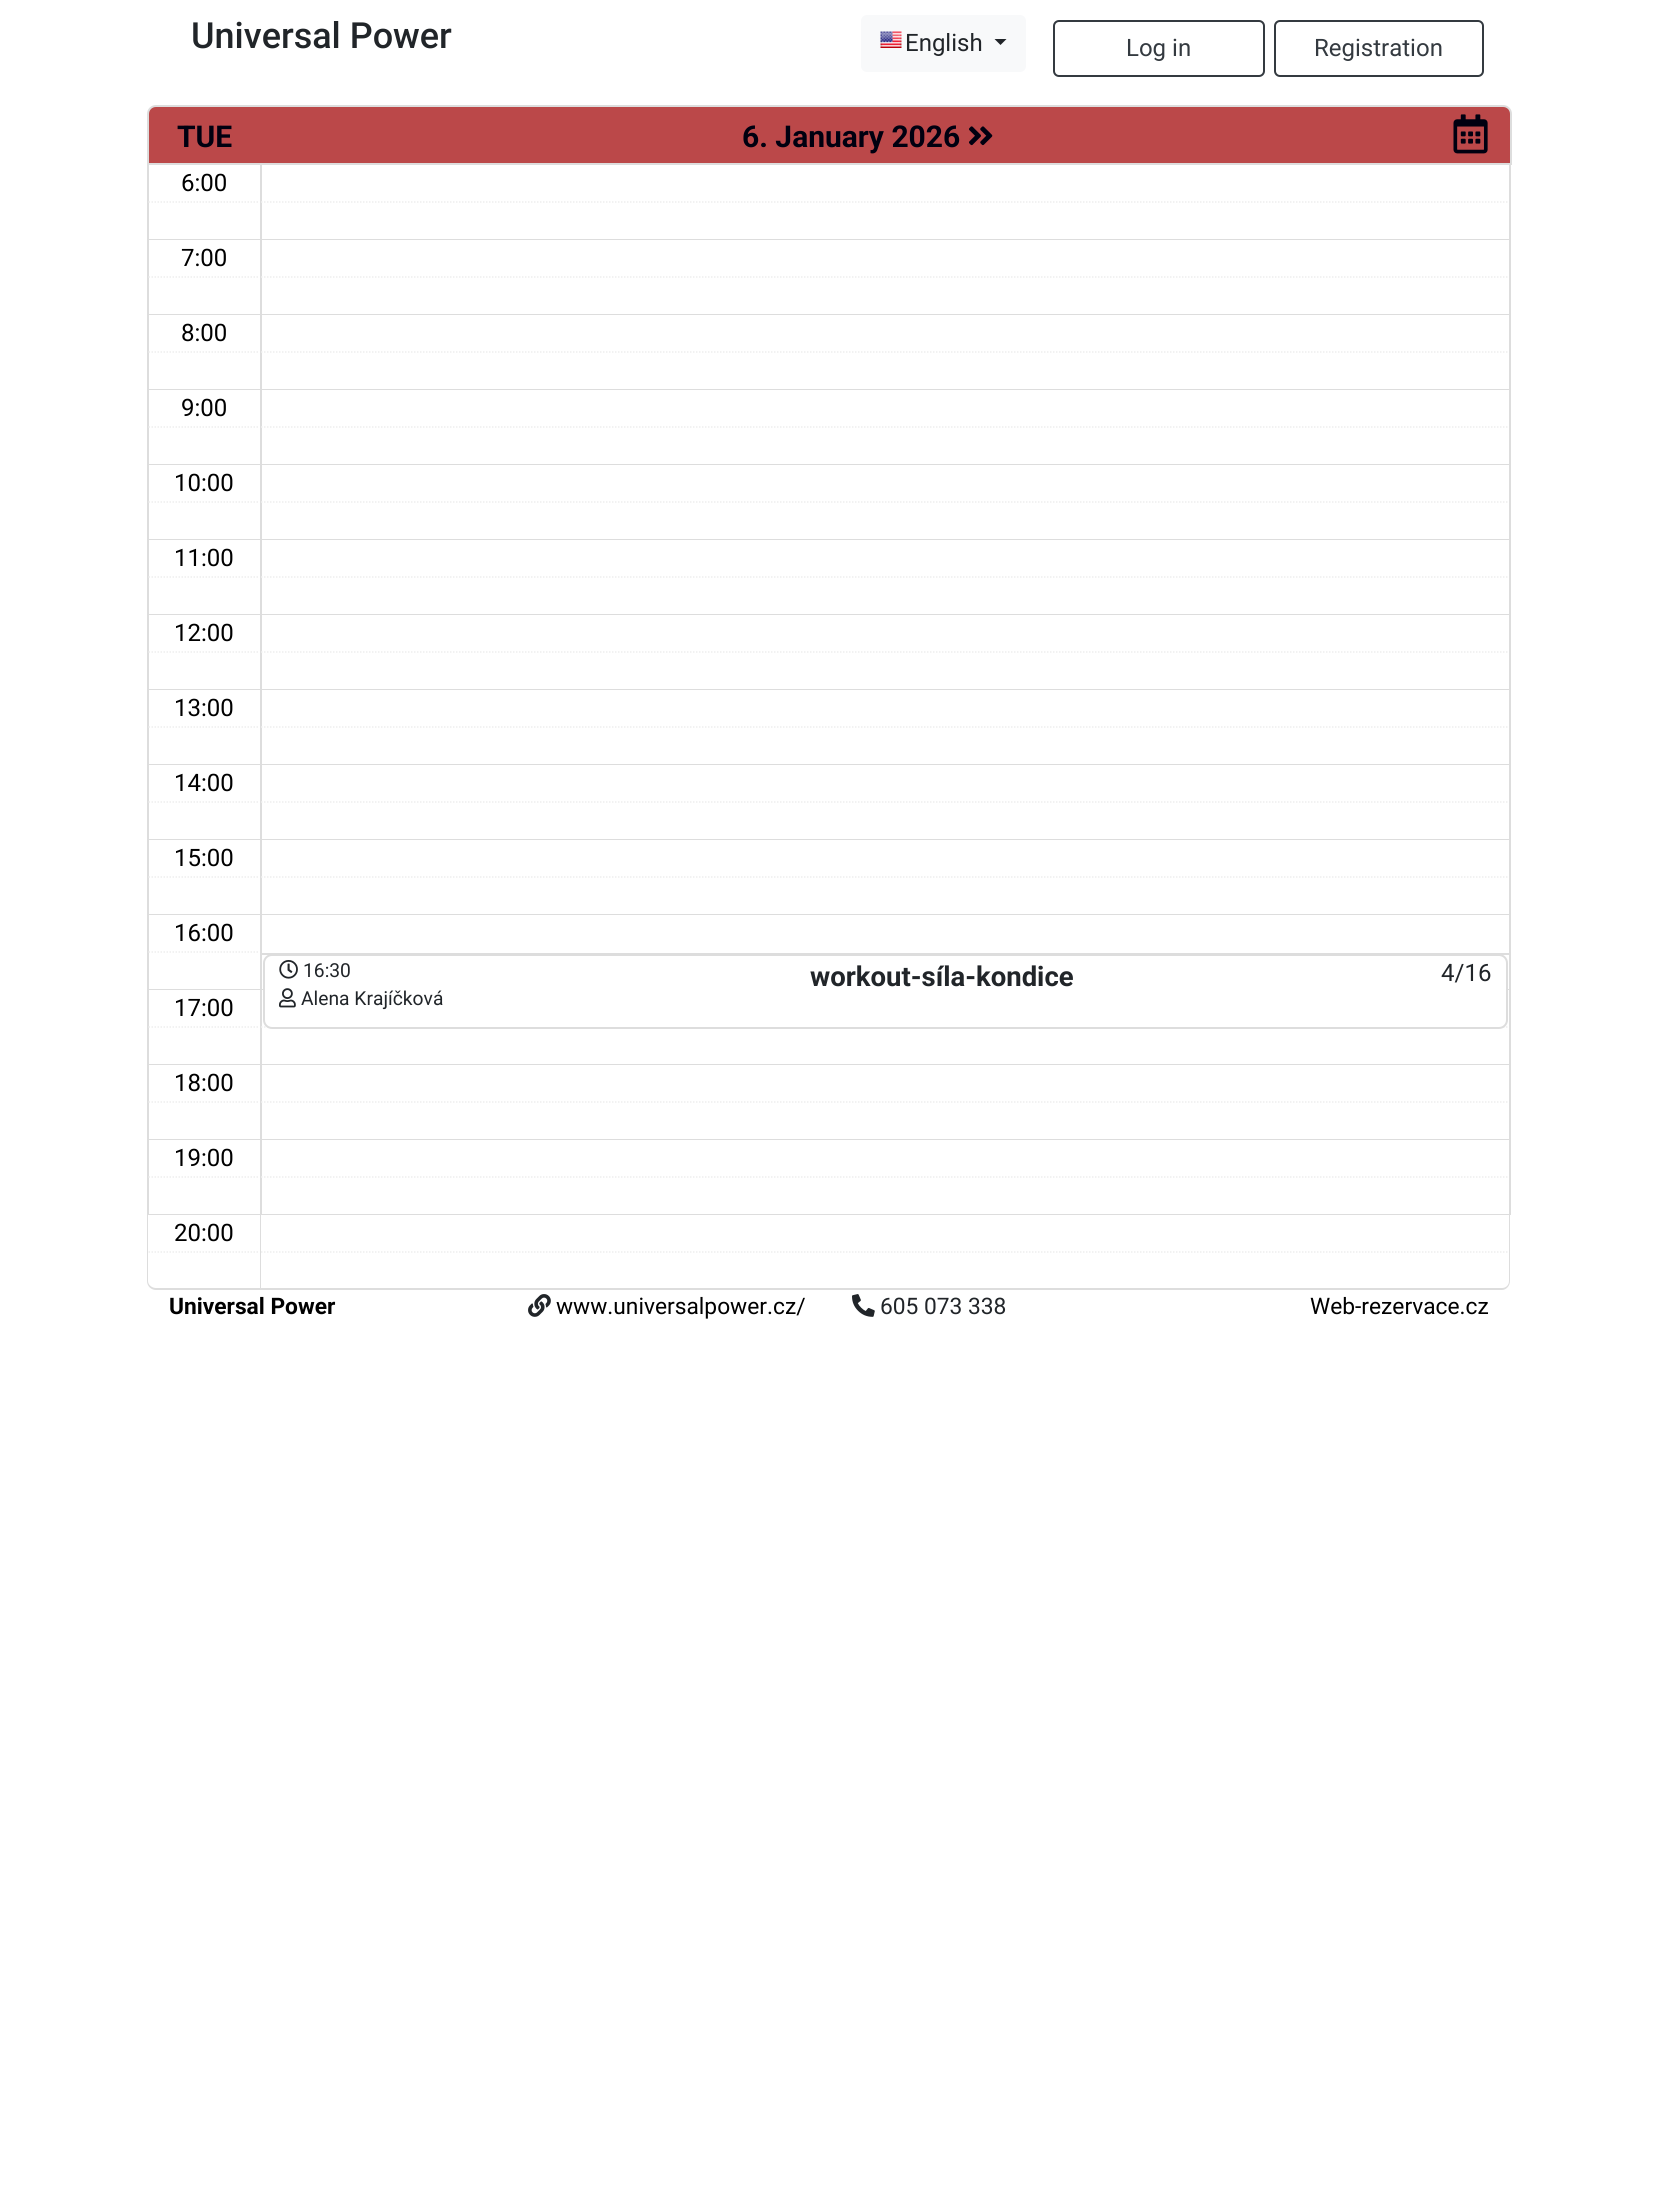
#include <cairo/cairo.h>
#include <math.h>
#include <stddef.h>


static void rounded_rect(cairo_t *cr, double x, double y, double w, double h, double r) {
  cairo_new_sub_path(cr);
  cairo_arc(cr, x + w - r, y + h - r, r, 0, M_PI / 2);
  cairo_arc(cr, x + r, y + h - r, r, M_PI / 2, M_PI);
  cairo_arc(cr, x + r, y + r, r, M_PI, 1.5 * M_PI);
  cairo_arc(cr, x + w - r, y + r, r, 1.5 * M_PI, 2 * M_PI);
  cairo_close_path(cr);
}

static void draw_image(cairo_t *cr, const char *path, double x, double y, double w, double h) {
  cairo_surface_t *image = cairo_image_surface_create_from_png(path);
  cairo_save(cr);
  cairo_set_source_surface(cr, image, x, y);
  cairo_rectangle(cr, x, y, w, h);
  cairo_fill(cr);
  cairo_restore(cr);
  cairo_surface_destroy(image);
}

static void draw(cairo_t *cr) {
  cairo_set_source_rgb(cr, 1, 1, 1);
  cairo_paint(cr);
  cairo_set_source_rgb(cr, 248 / 255.0, 249 / 255.0, 250 / 255.0);
  rounded_rect(cr, 861, 15, 165, 57, 6);
  cairo_fill(cr);
  draw_image(cr, "images/1.png", 880, 31, 22, 17);
  cairo_set_source_rgb(cr, 33 / 255.0, 37 / 255.0, 41 / 255.0);
  cairo_new_path(cr);
  cairo_move_to(cr, 994.5, 39);
  cairo_line_to(cr, 1006.5, 39);
  cairo_line_to(cr, 1000.5, 45);
  cairo_close_path(cr);
  cairo_fill(cr);
  rounded_rect(cr, 1054, 21, 210, 55, 5);
  cairo_set_source_rgb(cr, 52 / 255.0, 58 / 255.0, 64 / 255.0);
  cairo_stroke(cr);
  rounded_rect(cr, 1275, 21, 208, 55, 5);
  cairo_stroke(cr);
  cairo_set_source_rgb(cr, 187 / 255.0, 72 / 255.0, 73 / 255.0);
  cairo_new_path(cr);
  cairo_move_to(cr, 156, 106);
  cairo_line_to(cr, 1503, 106);
  cairo_curve_to(cr, 1507.5, 106, 1511, 109.5, 1511, 114);
  cairo_line_to(cr, 1511, 164);
  cairo_line_to(cr, 148, 164);
  cairo_line_to(cr, 148, 114);
  cairo_curve_to(cr, 148, 109.5, 151.5, 106, 156, 106);
  cairo_close_path(cr);
  cairo_fill_preserve(cr);
  cairo_set_source_rgb(cr, 221 / 255.0, 221 / 255.0, 221 / 255.0);
  cairo_stroke(cr);
  draw_image(cr, "images/2.png", 969, 126, 24, 20);
  draw_image(cr, "images/3.png", 1453, 114, 35, 40);
  cairo_rectangle(cr, 147, 239, 113, 1);
  cairo_fill(cr);
  cairo_rectangle(cr, 147, 165, 2, 75);
  cairo_fill(cr);
  cairo_new_path(cr);
  cairo_move_to(cr, 148.5, 202);
  cairo_line_to(cr, 259.5, 202);
  cairo_set_source_rgb(cr, 238 / 255.0, 238 / 255.0, 238 / 255.0);
  cairo_set_line_width(cr, 1.5);
  cairo_set_dash(cr, (double[]){1.5, 1.5}, 2, 0);
  cairo_stroke(cr);
  cairo_set_source_rgb(cr, 221 / 255.0, 221 / 255.0, 221 / 255.0);
  cairo_rectangle(cr, 1509, 165, 2, 1050);
  cairo_fill(cr);
  cairo_rectangle(cr, 260, 239, 1251, 1);
  cairo_fill(cr);
  cairo_rectangle(cr, 260, 165, 2, 75);
  cairo_fill(cr);
  cairo_new_path(cr);
  cairo_move_to(cr, 261, 202);
  cairo_line_to(cr, 1509, 202);
  cairo_set_source_rgb(cr, 238 / 255.0, 238 / 255.0, 238 / 255.0);
  cairo_stroke(cr);
  cairo_set_source_rgb(cr, 221 / 255.0, 221 / 255.0, 221 / 255.0);
  cairo_rectangle(cr, 147, 314, 1364, 1);
  cairo_fill(cr);
  cairo_rectangle(cr, 147, 240, 2, 75);
  cairo_fill(cr);
  cairo_new_path(cr);
  cairo_move_to(cr, 148.5, 277);
  cairo_line_to(cr, 259.5, 277);
  cairo_set_source_rgb(cr, 238 / 255.0, 238 / 255.0, 238 / 255.0);
  cairo_stroke(cr);
  cairo_set_source_rgb(cr, 221 / 255.0, 221 / 255.0, 221 / 255.0);
  cairo_rectangle(cr, 260, 240, 2, 75);
  cairo_fill(cr);
  cairo_new_path(cr);
  cairo_move_to(cr, 261, 277);
  cairo_line_to(cr, 1509, 277);
  cairo_set_source_rgb(cr, 238 / 255.0, 238 / 255.0, 238 / 255.0);
  cairo_stroke(cr);
  cairo_set_source_rgb(cr, 221 / 255.0, 221 / 255.0, 221 / 255.0);
  cairo_rectangle(cr, 147, 389, 1364, 1);
  cairo_fill(cr);
  cairo_rectangle(cr, 147, 315, 2, 75);
  cairo_fill(cr);
  cairo_new_path(cr);
  cairo_move_to(cr, 148.5, 352);
  cairo_line_to(cr, 259.5, 352);
  cairo_set_source_rgb(cr, 238 / 255.0, 238 / 255.0, 238 / 255.0);
  cairo_stroke(cr);
  cairo_set_source_rgb(cr, 221 / 255.0, 221 / 255.0, 221 / 255.0);
  cairo_rectangle(cr, 260, 315, 2, 75);
  cairo_fill(cr);
  cairo_new_path(cr);
  cairo_move_to(cr, 261, 352);
  cairo_line_to(cr, 1509, 352);
  cairo_set_source_rgb(cr, 238 / 255.0, 238 / 255.0, 238 / 255.0);
  cairo_stroke(cr);
  cairo_set_source_rgb(cr, 221 / 255.0, 221 / 255.0, 221 / 255.0);
  cairo_rectangle(cr, 147, 464, 1364, 1);
  cairo_fill(cr);
  cairo_rectangle(cr, 147, 390, 2, 75);
  cairo_fill(cr);
  cairo_new_path(cr);
  cairo_move_to(cr, 148.5, 427);
  cairo_line_to(cr, 259.5, 427);
  cairo_set_source_rgb(cr, 238 / 255.0, 238 / 255.0, 238 / 255.0);
  cairo_stroke(cr);
  cairo_set_source_rgb(cr, 221 / 255.0, 221 / 255.0, 221 / 255.0);
  cairo_rectangle(cr, 260, 390, 2, 75);
  cairo_fill(cr);
  cairo_new_path(cr);
  cairo_move_to(cr, 261, 427);
  cairo_line_to(cr, 1509, 427);
  cairo_set_source_rgb(cr, 238 / 255.0, 238 / 255.0, 238 / 255.0);
  cairo_stroke(cr);
  cairo_set_source_rgb(cr, 221 / 255.0, 221 / 255.0, 221 / 255.0);
  cairo_rectangle(cr, 147, 539, 1364, 1);
  cairo_fill(cr);
  cairo_rectangle(cr, 147, 465, 2, 75);
  cairo_fill(cr);
  cairo_new_path(cr);
  cairo_move_to(cr, 148.5, 502);
  cairo_line_to(cr, 259.5, 502);
  cairo_set_source_rgb(cr, 238 / 255.0, 238 / 255.0, 238 / 255.0);
  cairo_stroke(cr);
  cairo_set_source_rgb(cr, 221 / 255.0, 221 / 255.0, 221 / 255.0);
  cairo_rectangle(cr, 260, 465, 2, 75);
  cairo_fill(cr);
  cairo_new_path(cr);
  cairo_move_to(cr, 261, 502);
  cairo_line_to(cr, 1509, 502);
  cairo_set_source_rgb(cr, 238 / 255.0, 238 / 255.0, 238 / 255.0);
  cairo_stroke(cr);
  cairo_set_source_rgb(cr, 221 / 255.0, 221 / 255.0, 221 / 255.0);
  cairo_rectangle(cr, 147, 614, 1364, 1);
  cairo_fill(cr);
  cairo_rectangle(cr, 147, 540, 2, 75);
  cairo_fill(cr);
  cairo_new_path(cr);
  cairo_move_to(cr, 148.5, 577);
  cairo_line_to(cr, 259.5, 577);
  cairo_set_source_rgb(cr, 238 / 255.0, 238 / 255.0, 238 / 255.0);
  cairo_stroke(cr);
  cairo_set_source_rgb(cr, 221 / 255.0, 221 / 255.0, 221 / 255.0);
  cairo_rectangle(cr, 260, 540, 2, 75);
  cairo_fill(cr);
  cairo_new_path(cr);
  cairo_move_to(cr, 261, 577);
  cairo_line_to(cr, 1509, 577);
  cairo_set_source_rgb(cr, 238 / 255.0, 238 / 255.0, 238 / 255.0);
  cairo_stroke(cr);
  cairo_set_source_rgb(cr, 221 / 255.0, 221 / 255.0, 221 / 255.0);
  cairo_rectangle(cr, 147, 689, 1364, 1);
  cairo_fill(cr);
  cairo_rectangle(cr, 147, 615, 2, 75);
  cairo_fill(cr);
  cairo_new_path(cr);
  cairo_move_to(cr, 148.5, 652);
  cairo_line_to(cr, 259.5, 652);
  cairo_set_source_rgb(cr, 238 / 255.0, 238 / 255.0, 238 / 255.0);
  cairo_stroke(cr);
  cairo_set_source_rgb(cr, 221 / 255.0, 221 / 255.0, 221 / 255.0);
  cairo_rectangle(cr, 260, 615, 2, 75);
  cairo_fill(cr);
  cairo_new_path(cr);
  cairo_move_to(cr, 261, 652);
  cairo_line_to(cr, 1509, 652);
  cairo_set_source_rgb(cr, 238 / 255.0, 238 / 255.0, 238 / 255.0);
  cairo_stroke(cr);
  cairo_set_source_rgb(cr, 221 / 255.0, 221 / 255.0, 221 / 255.0);
  cairo_rectangle(cr, 147, 764, 1364, 1);
  cairo_fill(cr);
  cairo_rectangle(cr, 147, 690, 2, 75);
  cairo_fill(cr);
  cairo_new_path(cr);
  cairo_move_to(cr, 148.5, 727);
  cairo_line_to(cr, 259.5, 727);
  cairo_set_source_rgb(cr, 238 / 255.0, 238 / 255.0, 238 / 255.0);
  cairo_stroke(cr);
  cairo_set_source_rgb(cr, 221 / 255.0, 221 / 255.0, 221 / 255.0);
  cairo_rectangle(cr, 260, 690, 2, 75);
  cairo_fill(cr);
  cairo_new_path(cr);
  cairo_move_to(cr, 261, 727);
  cairo_line_to(cr, 1509, 727);
  cairo_set_source_rgb(cr, 238 / 255.0, 238 / 255.0, 238 / 255.0);
  cairo_stroke(cr);
  cairo_set_source_rgb(cr, 221 / 255.0, 221 / 255.0, 221 / 255.0);
  cairo_rectangle(cr, 147, 839, 1364, 1);
  cairo_fill(cr);
  cairo_rectangle(cr, 147, 765, 2, 75);
  cairo_fill(cr);
  cairo_new_path(cr);
  cairo_move_to(cr, 148.5, 802);
  cairo_line_to(cr, 259.5, 802);
  cairo_set_source_rgb(cr, 238 / 255.0, 238 / 255.0, 238 / 255.0);
  cairo_stroke(cr);
  cairo_set_source_rgb(cr, 221 / 255.0, 221 / 255.0, 221 / 255.0);
  cairo_rectangle(cr, 260, 765, 2, 75);
  cairo_fill(cr);
  cairo_new_path(cr);
  cairo_move_to(cr, 261, 802);
  cairo_line_to(cr, 1509, 802);
  cairo_set_source_rgb(cr, 238 / 255.0, 238 / 255.0, 238 / 255.0);
  cairo_stroke(cr);
  cairo_set_source_rgb(cr, 221 / 255.0, 221 / 255.0, 221 / 255.0);
  cairo_rectangle(cr, 147, 914, 1364, 1);
  cairo_fill(cr);
  cairo_rectangle(cr, 147, 840, 2, 75);
  cairo_fill(cr);
  cairo_new_path(cr);
  cairo_move_to(cr, 148.5, 877);
  cairo_line_to(cr, 259.5, 877);
  cairo_set_source_rgb(cr, 238 / 255.0, 238 / 255.0, 238 / 255.0);
  cairo_stroke(cr);
  cairo_set_source_rgb(cr, 221 / 255.0, 221 / 255.0, 221 / 255.0);
  cairo_rectangle(cr, 260, 840, 2, 75);
  cairo_fill(cr);
  cairo_new_path(cr);
  cairo_move_to(cr, 261, 877);
  cairo_line_to(cr, 1509, 877);
  cairo_set_source_rgb(cr, 238 / 255.0, 238 / 255.0, 238 / 255.0);
  cairo_stroke(cr);
  cairo_set_source_rgb(cr, 221 / 255.0, 221 / 255.0, 221 / 255.0);
  cairo_rectangle(cr, 147, 989, 1364, 1);
  cairo_fill(cr);
  cairo_rectangle(cr, 147, 915, 2, 75);
  cairo_fill(cr);
  cairo_new_path(cr);
  cairo_move_to(cr, 148.5, 952);
  cairo_line_to(cr, 259.5, 952);
  cairo_set_source_rgb(cr, 238 / 255.0, 238 / 255.0, 238 / 255.0);
  cairo_stroke(cr);
  cairo_set_source_rgb(cr, 221 / 255.0, 221 / 255.0, 221 / 255.0);
  cairo_rectangle(cr, 260, 915, 2, 75);
  cairo_fill(cr);
  cairo_rectangle(cr, 261, 953, 1248, 2);
  cairo_fill(cr);
  cairo_rectangle(cr, 147, 1064, 1364, 1);
  cairo_fill(cr);
  cairo_rectangle(cr, 260, 990, 2, 75);
  cairo_fill(cr);
  cairo_new_path(cr);
  cairo_move_to(cr, 261, 1027);
  cairo_line_to(cr, 1509, 1027);
  cairo_set_source_rgb(cr, 238 / 255.0, 238 / 255.0, 238 / 255.0);
  cairo_stroke(cr);
  cairo_set_source_rgb(cr, 1, 1, 1);
  rounded_rect(cr, 264, 955, 1243, 73, 8);
  cairo_fill_preserve(cr);
  cairo_set_source_rgb(cr, 221 / 255.0, 221 / 255.0, 221 / 255.0);
  cairo_set_line_width(cr, 2);
  cairo_set_dash(cr, NULL, 0, 0);
  cairo_stroke(cr);
  draw_image(cr, "images/4.png", 279, 960, 19, 19);
  draw_image(cr, "images/5.png", 279, 988, 17, 20);
  cairo_rectangle(cr, 147, 990, 2, 75);
  cairo_fill(cr);
  cairo_new_path(cr);
  cairo_move_to(cr, 148.5, 1027);
  cairo_line_to(cr, 259.5, 1027);
  cairo_set_source_rgb(cr, 238 / 255.0, 238 / 255.0, 238 / 255.0);
  cairo_set_line_width(cr, 1.5);
  cairo_set_dash(cr, (double[]){1.5, 1.5}, 2, 0);
  cairo_stroke(cr);
  cairo_set_source_rgb(cr, 221 / 255.0, 221 / 255.0, 221 / 255.0);
  cairo_rectangle(cr, 147, 1139, 1364, 1);
  cairo_fill(cr);
  cairo_rectangle(cr, 147, 1065, 2, 75);
  cairo_fill(cr);
  cairo_new_path(cr);
  cairo_move_to(cr, 148.5, 1102);
  cairo_line_to(cr, 259.5, 1102);
  cairo_set_source_rgb(cr, 238 / 255.0, 238 / 255.0, 238 / 255.0);
  cairo_stroke(cr);
  cairo_set_source_rgb(cr, 221 / 255.0, 221 / 255.0, 221 / 255.0);
  cairo_rectangle(cr, 260, 1065, 2, 75);
  cairo_fill(cr);
  cairo_new_path(cr);
  cairo_move_to(cr, 261, 1102);
  cairo_line_to(cr, 1509, 1102);
  cairo_set_source_rgb(cr, 238 / 255.0, 238 / 255.0, 238 / 255.0);
  cairo_stroke(cr);
  cairo_set_source_rgb(cr, 221 / 255.0, 221 / 255.0, 221 / 255.0);
  cairo_rectangle(cr, 147, 1214, 1364, 1);
  cairo_fill(cr);
  cairo_rectangle(cr, 147, 1140, 2, 75);
  cairo_fill(cr);
  cairo_new_path(cr);
  cairo_move_to(cr, 148.5, 1177);
  cairo_line_to(cr, 259.5, 1177);
  cairo_set_source_rgb(cr, 238 / 255.0, 238 / 255.0, 238 / 255.0);
  cairo_stroke(cr);
  cairo_set_source_rgb(cr, 221 / 255.0, 221 / 255.0, 221 / 255.0);
  cairo_rectangle(cr, 260, 1140, 2, 75);
  cairo_fill(cr);
  cairo_new_path(cr);
  cairo_move_to(cr, 261, 1177);
  cairo_line_to(cr, 1509, 1177);
  cairo_set_source_rgb(cr, 238 / 255.0, 238 / 255.0, 238 / 255.0);
  cairo_stroke(cr);
  cairo_set_source_rgb(cr, 221 / 255.0, 221 / 255.0, 221 / 255.0);
  cairo_set_fill_rule(cr, CAIRO_FILL_RULE_EVEN_ODD);
  cairo_new_path(cr);
  cairo_move_to(cr, 147, 1215);
  cairo_line_to(cr, 260, 1215);
  cairo_line_to(cr, 260, 1290);
  cairo_line_to(cr, 156, 1290);
  cairo_curve_to(cr, 151, 1290, 147, 1286, 147, 1281);
  cairo_close_path(cr);
  cairo_move_to(cr, 148, 1215);
  cairo_line_to(cr, 260, 1215);
  cairo_line_to(cr, 260, 1288);
  cairo_line_to(cr, 156, 1288);
  cairo_curve_to(cr, 152, 1288, 148, 1285, 148, 1281);
  cairo_close_path(cr);
  cairo_fill(cr);
  cairo_new_path(cr);
  cairo_move_to(cr, 148.5, 1252);
  cairo_line_to(cr, 259.5, 1252);
  cairo_set_source_rgb(cr, 238 / 255.0, 238 / 255.0, 238 / 255.0);
  cairo_stroke(cr);
  cairo_set_source_rgb(cr, 221 / 255.0, 221 / 255.0, 221 / 255.0);
  cairo_new_path(cr);
  cairo_move_to(cr, 260, 1215);
  cairo_line_to(cr, 1510, 1215);
  cairo_line_to(cr, 1510, 1281);
  cairo_curve_to(cr, 1510, 1286, 1506, 1290, 1502, 1290);
  cairo_line_to(cr, 260, 1290);
  cairo_close_path(cr);
  cairo_move_to(cr, 261, 1215);
  cairo_line_to(cr, 1509, 1215);
  cairo_line_to(cr, 1509, 1281);
  cairo_curve_to(cr, 1509, 1285, 1506, 1288, 1502, 1288);
  cairo_line_to(cr, 261, 1288);
  cairo_close_path(cr);
  cairo_fill(cr);
  cairo_new_path(cr);
  cairo_move_to(cr, 261, 1252);
  cairo_line_to(cr, 1509, 1252);
  cairo_set_source_rgb(cr, 238 / 255.0, 238 / 255.0, 238 / 255.0);
  cairo_stroke(cr);
  draw_image(cr, "images/6.png", 528, 1294, 23, 23);
  draw_image(cr, "images/7.png", 852, 1294, 23, 23);
  cairo_select_font_face(cr, "Roboto Medium", CAIRO_FONT_SLANT_NORMAL, CAIRO_FONT_WEIGHT_NORMAL);
  cairo_set_font_size(cr, 36);
  cairo_set_source_rgb(cr, 33 / 255.0, 37 / 255.0, 41 / 255.0);
  cairo_move_to(cr, 191, 48);
  cairo_show_text(cr, "Universal Power");
  cairo_select_font_face(cr, "Roboto", CAIRO_FONT_SLANT_NORMAL, CAIRO_FONT_WEIGHT_NORMAL);
  cairo_set_font_size(cr, 24);
  cairo_move_to(cr, 905, 51);
  cairo_show_text(cr, "English");
  cairo_set_source_rgb(cr, 52 / 255.0, 58 / 255.0, 64 / 255.0);
  cairo_move_to(cr, 1126, 56);
  cairo_show_text(cr, "Log in");
  cairo_move_to(cr, 1314, 56);
  cairo_show_text(cr, "Registration");
  cairo_select_font_face(cr, "Roboto", CAIRO_FONT_SLANT_NORMAL, CAIRO_FONT_WEIGHT_BOLD);
  cairo_set_font_size(cr, 30);
  cairo_set_source_rgb(cr, 0, 0, 16 / 255.0);
  cairo_move_to(cr, 177, 147);
  cairo_show_text(cr, "TUE");
  cairo_move_to(cr, 742, 147);
  cairo_show_text(cr, "6. January 2026");
  cairo_select_font_face(cr, "Roboto", CAIRO_FONT_SLANT_NORMAL, CAIRO_FONT_WEIGHT_NORMAL);
  cairo_set_font_size(cr, 24);
  cairo_set_source_rgb(cr, 0, 0, 0);
  cairo_move_to(cr, 181, 191);
  cairo_show_text(cr, "6:00");
  cairo_move_to(cr, 181, 266);
  cairo_show_text(cr, "7:00");
  cairo_move_to(cr, 181, 341);
  cairo_show_text(cr, "8:00");
  cairo_move_to(cr, 181, 416);
  cairo_show_text(cr, "9:00");
  cairo_move_to(cr, 174, 491);
  cairo_show_text(cr, "10:00");
  cairo_move_to(cr, 174, 566);
  cairo_show_text(cr, "11:00");
  cairo_move_to(cr, 174, 641);
  cairo_show_text(cr, "12:00");
  cairo_move_to(cr, 174, 716);
  cairo_show_text(cr, "13:00");
  cairo_move_to(cr, 174, 791);
  cairo_show_text(cr, "14:00");
  cairo_move_to(cr, 174, 866);
  cairo_show_text(cr, "15:00");
  cairo_move_to(cr, 174, 941);
  cairo_show_text(cr, "16:00");
  cairo_set_font_size(cr, 19.25);
  cairo_set_source_rgb(cr, 33 / 255.0, 37 / 255.0, 41 / 255.0);
  cairo_move_to(cr, 303, 977);
  cairo_show_text(cr, "16:30");
  cairo_move_to(cr, 301, 1005);
  cairo_show_text(cr, "Alena Krajíčková");
  cairo_select_font_face(cr, "Roboto", CAIRO_FONT_SLANT_NORMAL, CAIRO_FONT_WEIGHT_BOLD);
  cairo_set_font_size(cr, 27.5);
  cairo_move_to(cr, 810, 986);
  cairo_show_text(cr, "workout-síla-kondice");
  cairo_select_font_face(cr, "Roboto", CAIRO_FONT_SLANT_NORMAL, CAIRO_FONT_WEIGHT_NORMAL);
  cairo_set_font_size(cr, 24);
  cairo_move_to(cr, 1441, 981);
  cairo_show_text(cr, "4/16");
  cairo_set_source_rgb(cr, 0, 0, 0);
  cairo_move_to(cr, 174, 1016);
  cairo_show_text(cr, "17:00");
  cairo_move_to(cr, 174, 1091);
  cairo_show_text(cr, "18:00");
  cairo_move_to(cr, 174, 1166);
  cairo_show_text(cr, "19:00");
  cairo_move_to(cr, 174, 1241);
  cairo_show_text(cr, "20:00");
  cairo_select_font_face(cr, "Roboto", CAIRO_FONT_SLANT_NORMAL, CAIRO_FONT_WEIGHT_BOLD);
  cairo_set_font_size(cr, 22.75);
  cairo_move_to(cr, 169, 1314);
  cairo_show_text(cr, "Universal Power");
  cairo_select_font_face(cr, "Roboto", CAIRO_FONT_SLANT_NORMAL, CAIRO_FONT_WEIGHT_NORMAL);
  cairo_move_to(cr, 556, 1314);
  cairo_show_text(cr, "www.universalpower.cz/");
  cairo_set_source_rgb(cr, 33 / 255.0, 37 / 255.0, 41 / 255.0);
  cairo_move_to(cr, 880, 1314);
  cairo_show_text(cr, "605 073 338");
  cairo_set_source_rgb(cr, 0, 0, 0);
  cairo_move_to(cr, 1310, 1314);
  cairo_show_text(cr, "Web-rezervace.cz");
}

int main(void) {
  cairo_surface_t *surface = cairo_image_surface_create(CAIRO_FORMAT_RGB24, 1657, 2192);
  cairo_t *cr = cairo_create(surface);
  cairo_font_options_t *options = cairo_font_options_create();
  cairo_font_options_set_hint_metrics(options, CAIRO_HINT_METRICS_OFF);
  cairo_font_options_set_hint_style(options, CAIRO_HINT_STYLE_NONE);
  cairo_set_font_options(cr, options);
  cairo_set_miter_limit(cr, 4);
  draw(cr);
  cairo_surface_write_to_png(surface, "out.png");
  cairo_font_options_destroy(options);
  cairo_destroy(cr);
  cairo_surface_destroy(surface);
  return 0;
}
